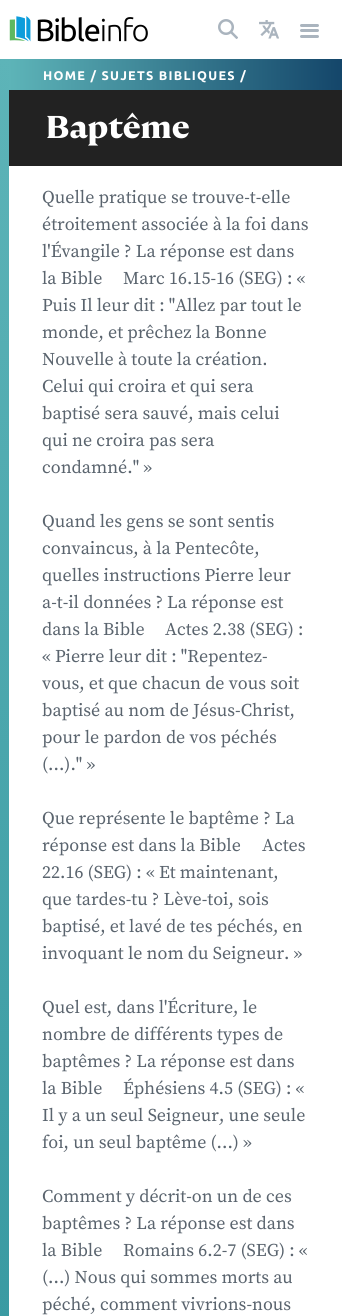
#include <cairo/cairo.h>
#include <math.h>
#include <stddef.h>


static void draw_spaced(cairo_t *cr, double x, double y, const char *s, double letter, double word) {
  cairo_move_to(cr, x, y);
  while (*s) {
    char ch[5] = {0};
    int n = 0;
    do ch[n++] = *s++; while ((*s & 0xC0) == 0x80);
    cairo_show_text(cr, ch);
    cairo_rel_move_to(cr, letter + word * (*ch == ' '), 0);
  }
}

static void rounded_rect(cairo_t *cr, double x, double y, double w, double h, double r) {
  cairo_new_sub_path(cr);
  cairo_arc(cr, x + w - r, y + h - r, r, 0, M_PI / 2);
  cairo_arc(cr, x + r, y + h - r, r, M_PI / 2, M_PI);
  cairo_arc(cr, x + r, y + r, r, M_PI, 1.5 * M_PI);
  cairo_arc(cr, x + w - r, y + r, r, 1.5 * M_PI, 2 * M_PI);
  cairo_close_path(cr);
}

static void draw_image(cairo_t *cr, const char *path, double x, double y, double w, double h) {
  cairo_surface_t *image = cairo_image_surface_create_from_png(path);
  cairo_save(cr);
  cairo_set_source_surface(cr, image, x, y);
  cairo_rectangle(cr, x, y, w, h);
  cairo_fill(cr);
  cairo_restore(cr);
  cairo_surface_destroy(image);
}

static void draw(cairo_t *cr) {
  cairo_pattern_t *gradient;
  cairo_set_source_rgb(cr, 1, 1, 1);
  cairo_paint(cr);
  draw_image(cr, "images/1.png", 9, 16, 139, 26);
  draw_image(cr, "images/2.png", 218, 19, 20, 20);
  draw_image(cr, "images/3.png", 259, 20, 20, 19);
  cairo_set_source_rgb(cr, 170 / 255.0, 180 / 255.0, 190 / 255.0);
  rounded_rect(cr, 300, 24, 19, 3, 1.5);
  cairo_fill(cr);
  rounded_rect(cr, 300, 29, 19, 3, 1.5);
  cairo_fill(cr);
  rounded_rect(cr, 300, 35, 19, 3, 1.5);
  cairo_fill(cr);
  draw_image(cr, "images/4.png", 0, 59, 9, 1257);
  cairo_set_source_rgb(cr, 34 / 255.0, 34 / 255.0, 34 / 255.0);
  cairo_rectangle(cr, 9, 90, 333, 76);
  cairo_fill(cr);
  gradient = cairo_pattern_create_linear(9, 75, 342, 74);
  cairo_pattern_add_color_stop_rgba(gradient, 0, 93 / 255.0, 180 / 255.0, 184 / 255.0, 1);
  cairo_pattern_add_color_stop_rgba(gradient, 1, 20 / 255.0, 70 / 255.0, 106 / 255.0, 1);
  cairo_set_source(cr, gradient);
  cairo_pattern_destroy(gradient);
  cairo_rectangle(cr, 9, 59, 333, 31);
  cairo_fill(cr);
  cairo_select_font_face(cr, "Ubuntu", CAIRO_FONT_SLANT_NORMAL, CAIRO_FONT_WEIGHT_BOLD);
  cairo_set_font_size(cr, 12.6);
  cairo_set_source_rgb(cr, 1, 1, 1);
  draw_spaced(cr, 43, 80, "HOME / SUJETS BIBLIQUES /", 1.25, 0);
  cairo_select_font_face(cr, "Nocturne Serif", CAIRO_FONT_SLANT_NORMAL, CAIRO_FONT_WEIGHT_BOLD);
  cairo_set_font_size(cr, 31.5);
  cairo_move_to(cr, 46, 138);
  cairo_show_text(cr, "Baptême");
  cairo_select_font_face(cr, "Source Serif Pro", CAIRO_FONT_SLANT_NORMAL, CAIRO_FONT_WEIGHT_NORMAL);
  cairo_set_font_size(cr, 18);
  cairo_set_source_rgb(cr, 90 / 255.0, 100 / 255.0, 110 / 255.0);
  cairo_move_to(cr, 42, 203);
  cairo_show_text(cr, "Quelle pratique se trouve-t-elle");
  cairo_move_to(cr, 42, 230);
  cairo_show_text(cr, "étroitement associée à la foi dans");
  cairo_move_to(cr, 42, 257);
  cairo_show_text(cr, "l'Évangile ? La réponse est dans");
  cairo_move_to(cr, 42, 284);
  cairo_show_text(cr, "la Bible");
  cairo_move_to(cr, 123, 284);
  cairo_show_text(cr, "Marc 16.15-16 (SEG) : «");
  cairo_move_to(cr, 42, 311);
  cairo_show_text(cr, "Puis Il leur dit : \"Allez par tout le");
  cairo_move_to(cr, 42, 338);
  cairo_show_text(cr, "monde, et prêchez la Bonne");
  cairo_move_to(cr, 42, 365);
  cairo_show_text(cr, "Nouvelle à toute la création.");
  cairo_move_to(cr, 42, 392);
  cairo_show_text(cr, "Celui qui croira et qui sera");
  cairo_move_to(cr, 42, 419);
  cairo_show_text(cr, "baptisé sera sauvé, mais celui");
  cairo_move_to(cr, 42, 446);
  cairo_show_text(cr, "qui ne croira pas sera");
  cairo_move_to(cr, 42, 473);
  cairo_show_text(cr, "condamné.\" »");
  cairo_move_to(cr, 42, 527);
  cairo_show_text(cr, "Quand les gens se sont sentis");
  cairo_move_to(cr, 42, 554);
  cairo_show_text(cr, "convaincus, à la Pentecôte,");
  cairo_move_to(cr, 42, 581);
  cairo_show_text(cr, "quelles instructions Pierre leur");
  cairo_move_to(cr, 42, 608);
  cairo_show_text(cr, "a-t-il données ? La réponse est");
  cairo_move_to(cr, 42, 635);
  cairo_show_text(cr, "dans la Bible");
  cairo_move_to(cr, 165, 635);
  cairo_show_text(cr, "Actes 2.38 (SEG) :");
  cairo_move_to(cr, 42, 662);
  cairo_show_text(cr, "« Pierre leur dit : \"Repentez-");
  cairo_move_to(cr, 42, 689);
  cairo_show_text(cr, "vous, et que chacun de vous soit");
  cairo_move_to(cr, 42, 716);
  cairo_show_text(cr, "baptisé au nom de Jésus-Christ,");
  cairo_move_to(cr, 42, 743);
  cairo_show_text(cr, "pour le pardon de vos péchés");
  cairo_move_to(cr, 42, 770);
  cairo_show_text(cr, "(...).\" »");
  cairo_move_to(cr, 42, 824);
  cairo_show_text(cr, "Que représente le baptême ? La");
  cairo_move_to(cr, 42, 851);
  cairo_show_text(cr, "réponse est dans la Bible");
  cairo_move_to(cr, 262, 851);
  cairo_show_text(cr, "Actes");
  cairo_move_to(cr, 42, 878);
  cairo_show_text(cr, "22.16 (SEG) : « Et maintenant,");
  cairo_move_to(cr, 42, 905);
  cairo_show_text(cr, "que tardes-tu ? Lève-toi, sois");
  cairo_move_to(cr, 42, 932);
  cairo_show_text(cr, "baptisé, et lavé de tes péchés, en");
  cairo_move_to(cr, 42, 959);
  cairo_show_text(cr, "invoquant le nom du Seigneur. »");
  cairo_move_to(cr, 42, 1013);
  cairo_show_text(cr, "Quel est, dans l'Écriture, le");
  cairo_move_to(cr, 42, 1040);
  cairo_show_text(cr, "nombre de différents types de");
  cairo_move_to(cr, 42, 1067);
  cairo_show_text(cr, "baptêmes ? La réponse est dans");
  cairo_move_to(cr, 42, 1094);
  cairo_show_text(cr, "la Bible");
  cairo_move_to(cr, 123, 1094);
  cairo_show_text(cr, "Éphésiens 4.5 (SEG) : «");
  cairo_move_to(cr, 42, 1121);
  cairo_show_text(cr, "Il y a un seul Seigneur, une seule");
  cairo_move_to(cr, 42, 1148);
  cairo_show_text(cr, "foi, un seul baptême (...) »");
  cairo_move_to(cr, 42, 1202);
  cairo_show_text(cr, "Comment y décrit-on un de ces");
  cairo_move_to(cr, 42, 1229);
  cairo_show_text(cr, "baptêmes ? La réponse est dans");
  cairo_move_to(cr, 42, 1256);
  cairo_show_text(cr, "la Bible");
  cairo_move_to(cr, 123, 1256);
  cairo_show_text(cr, "Romains 6.2-7 (SEG) : «");
  cairo_move_to(cr, 42, 1283);
  cairo_show_text(cr, "(...) Nous qui sommes morts au");
  cairo_move_to(cr, 42, 1310);
  cairo_show_text(cr, "péché, comment vivrions-nous");
}

int main(void) {
  cairo_surface_t *surface = cairo_image_surface_create(CAIRO_FORMAT_RGB24, 342, 1316);
  cairo_t *cr = cairo_create(surface);
  cairo_font_options_t *options = cairo_font_options_create();
  cairo_font_options_set_hint_metrics(options, CAIRO_HINT_METRICS_OFF);
  cairo_font_options_set_hint_style(options, CAIRO_HINT_STYLE_NONE);
  cairo_set_font_options(cr, options);
  cairo_set_miter_limit(cr, 4);
  draw(cr);
  cairo_surface_write_to_png(surface, "out.png");
  cairo_font_options_destroy(options);
  cairo_destroy(cr);
  cairo_surface_destroy(surface);
  return 0;
}
